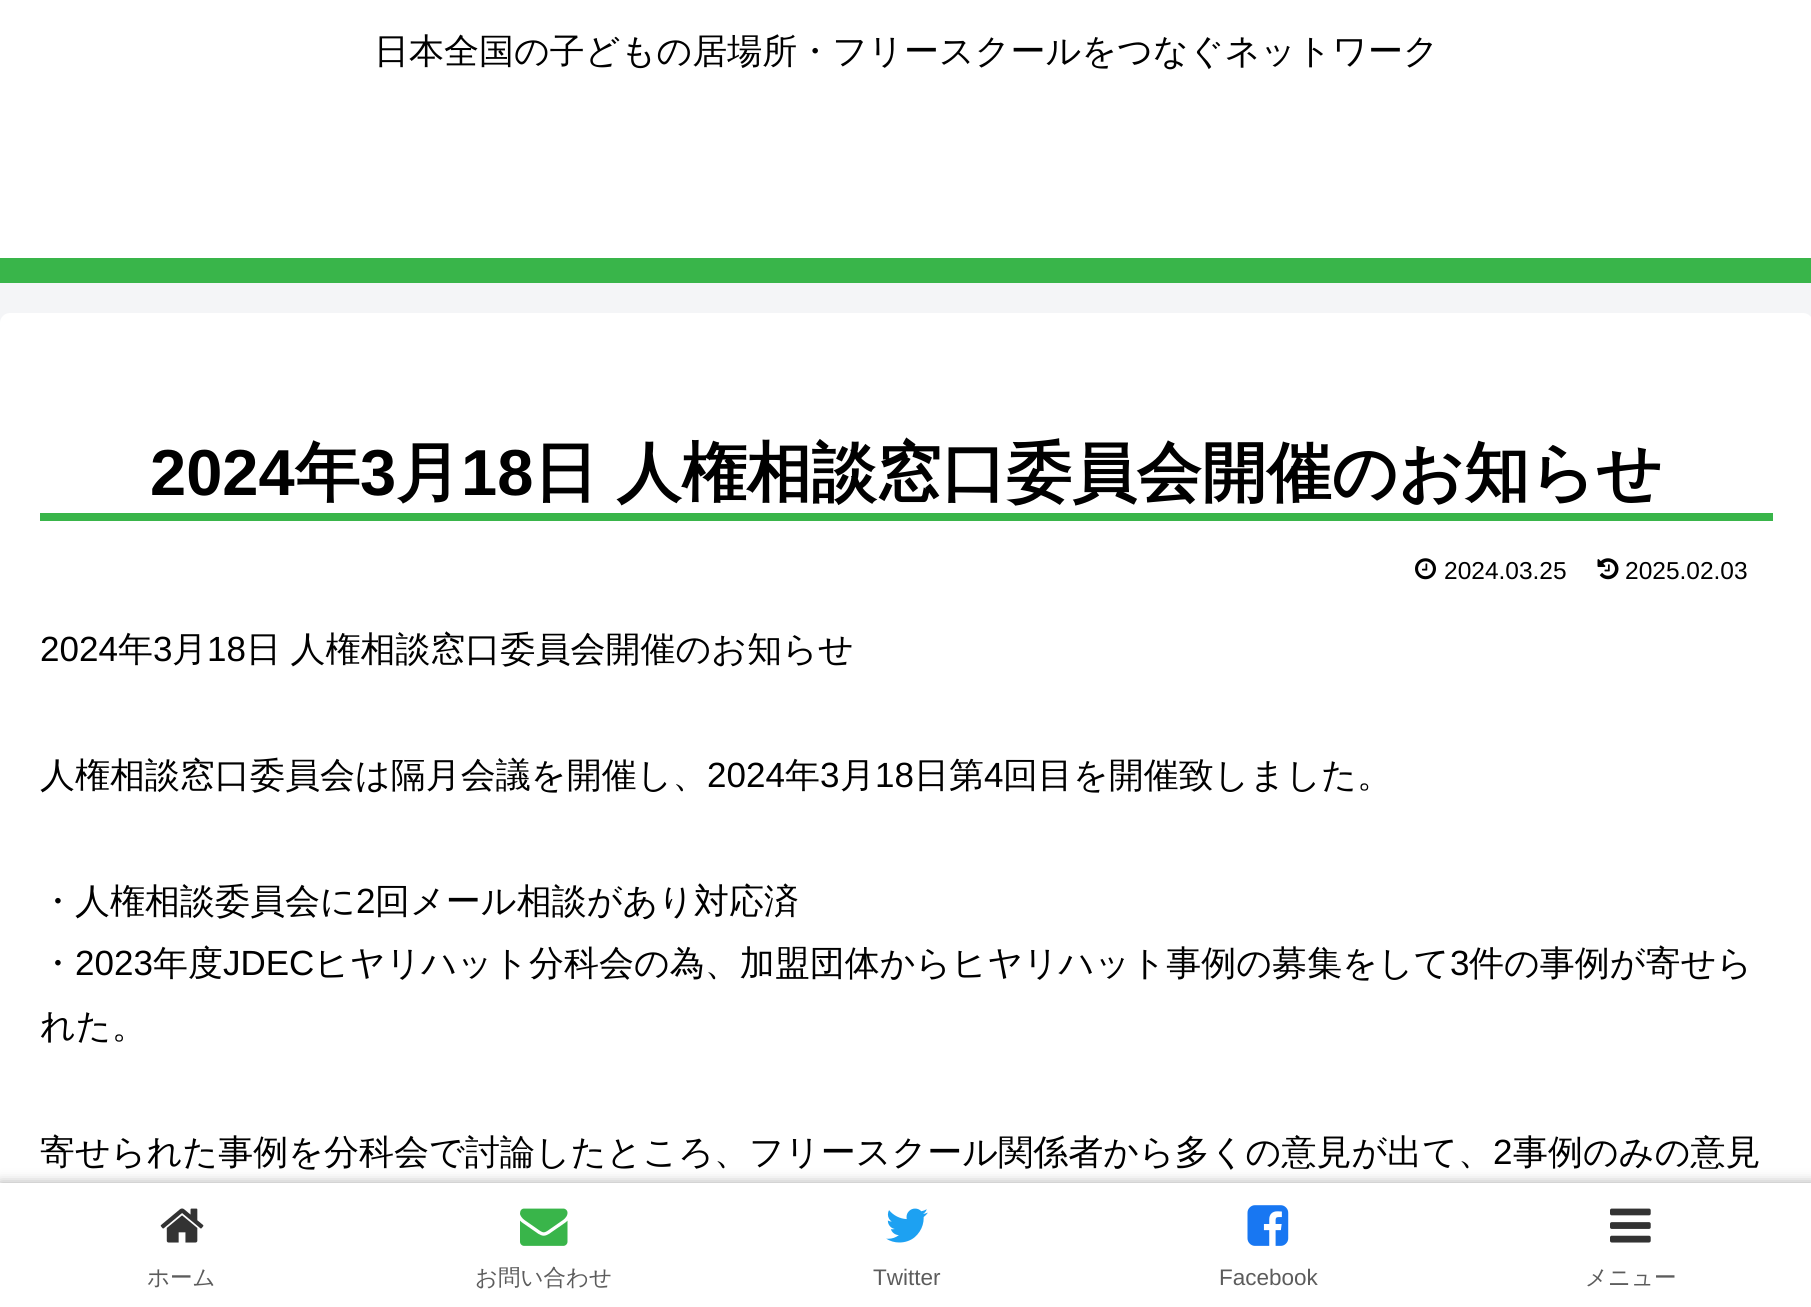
#include <cairo/cairo.h>
#include <math.h>
#include <stddef.h>


static void draw_spaced(cairo_t *cr, double x, double y, const char *s, double letter, double word) {
  cairo_move_to(cr, x, y);
  while (*s) {
    char ch[5] = {0};
    int n = 0;
    do ch[n++] = *s++; while ((*s & 0xC0) == 0x80);
    cairo_show_text(cr, ch);
    cairo_rel_move_to(cr, letter + word * (*ch == ' '), 0);
  }
}

static void rounded_rect(cairo_t *cr, double x, double y, double w, double h, double r) {
  cairo_new_sub_path(cr);
  cairo_arc(cr, x + w - r, y + h - r, r, 0, M_PI / 2);
  cairo_arc(cr, x + r, y + h - r, r, M_PI / 2, M_PI);
  cairo_arc(cr, x + r, y + r, r, M_PI, 1.5 * M_PI);
  cairo_arc(cr, x + w - r, y + r, r, 1.5 * M_PI, 2 * M_PI);
  cairo_close_path(cr);
}

static void draw_shadow(cairo_t *cr, double x, double y, double w, double h, double r, double blur, double alpha) {
  cairo_push_group_with_content(cr, CAIRO_CONTENT_ALPHA);
  cairo_set_operator(cr, CAIRO_OPERATOR_SOURCE);
  for (int i = 15; i >= -15 && fmin(w, h) + blur * i / 3 > 0; i -= 2) {
    double e = blur * i / 6;
    cairo_set_source_rgba(cr, 0, 0, 0, alpha * erfc((i - 1) / 8.5) / 2);
    rounded_rect(cr, x - e, y - e, w + 2 * e, h + 2 * e, fmax(0, fmin(r + e + blur * .6, fmin(w, h) / 2 + e)));
    cairo_fill(cr);
  }
  cairo_pattern_t *soft = cairo_pop_group(cr);
  cairo_mask(cr, soft);
  cairo_pattern_destroy(soft);
}

static void draw_image(cairo_t *cr, const char *path, double x, double y, double w, double h) {
  cairo_surface_t *image = cairo_image_surface_create_from_png(path);
  cairo_save(cr);
  cairo_set_source_surface(cr, image, x, y);
  cairo_rectangle(cr, x, y, w, h);
  cairo_fill(cr);
  cairo_restore(cr);
  cairo_surface_destroy(image);
}

static void draw(cairo_t *cr) {
  cairo_set_source_rgb(cr, 244 / 255.0, 245 / 255.0, 247 / 255.0);
  cairo_paint(cr);
  cairo_set_source_rgb(cr, 57 / 255.0, 181 / 255.0, 74 / 255.0);
  cairo_rectangle(cr, 0, 258, 1811, 25);
  cairo_fill(cr);
  cairo_set_source_rgb(cr, 1, 1, 1);
  cairo_rectangle(cr, 0, 0, 1811, 258);
  cairo_fill(cr);
  rounded_rect(cr, 0, 313, 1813, 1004, 10);
  cairo_fill(cr);
  cairo_set_source_rgb(cr, 57 / 255.0, 181 / 255.0, 74 / 255.0);
  cairo_rectangle(cr, 40, 513, 1733, 8);
  cairo_fill(cr);
  draw_image(cr, "images/1.png", 1415, 558, 21, 22);
  draw_image(cr, "images/2.png", 1597, 558, 22, 22);
  cairo_set_source_rgb(cr, 169 / 255.0, 169 / 255.0, 169 / 255.0);
  draw_shadow(cr, 0, 1183, 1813, 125, 0, 6, 1);
  cairo_set_source_rgb(cr, 1, 1, 1);
  cairo_rectangle(cr, 0, 1183, 1811, 124);
  cairo_fill(cr);
  draw_image(cr, "images/3.png", 160, 1208, 44, 35);
  draw_image(cr, "images/4.png", 520, 1208, 48, 38);
  draw_image(cr, "images/5.png", 886, 1208, 42, 35);
  draw_image(cr, "images/6.png", 1247, 1205, 42, 41);
  draw_image(cr, "images/7.png", 1610, 1208, 41, 35);
  cairo_select_font_face(cr, "WenQuanYi Zen Hei Medium", CAIRO_FONT_SLANT_NORMAL, CAIRO_FONT_WEIGHT_NORMAL);
  cairo_set_font_size(cr, 35);
  cairo_set_source_rgb(cr, 0, 0, 0);
  cairo_move_to(cr, 374, 63);
  cairo_show_text(cr, "日本全国の子どもの居場所・フリースクールをつなぐネットワーク");
  cairo_select_font_face(cr, "Liberation Sans", CAIRO_FONT_SLANT_NORMAL, CAIRO_FONT_WEIGHT_BOLD);
  cairo_set_font_size(cr, 65);
  cairo_move_to(cr, 150, 495);
  cairo_show_text(cr, "2024");
  cairo_select_font_face(cr, "WenQuanYi Zen Hei", CAIRO_FONT_SLANT_NORMAL, CAIRO_FONT_WEIGHT_BOLD);
  cairo_move_to(cr, 295, 495);
  cairo_show_text(cr, "年");
  cairo_select_font_face(cr, "Liberation Sans", CAIRO_FONT_SLANT_NORMAL, CAIRO_FONT_WEIGHT_BOLD);
  cairo_move_to(cr, 360, 495);
  cairo_show_text(cr, "3");
  cairo_select_font_face(cr, "WenQuanYi Zen Hei", CAIRO_FONT_SLANT_NORMAL, CAIRO_FONT_WEIGHT_BOLD);
  cairo_move_to(cr, 396, 495);
  cairo_show_text(cr, "月");
  cairo_select_font_face(cr, "Liberation Sans", CAIRO_FONT_SLANT_NORMAL, CAIRO_FONT_WEIGHT_BOLD);
  cairo_move_to(cr, 461, 495);
  cairo_show_text(cr, "18");
  cairo_select_font_face(cr, "WenQuanYi Zen Hei", CAIRO_FONT_SLANT_NORMAL, CAIRO_FONT_WEIGHT_BOLD);
  draw_spaced(cr, 533, 495, "日 人権相談窓口委員会開催のお知らせ", 0, -1);
  cairo_select_font_face(cr, "Liberation Sans", CAIRO_FONT_SLANT_NORMAL, CAIRO_FONT_WEIGHT_NORMAL);
  cairo_set_font_size(cr, 24.5);
  cairo_move_to(cr, 1444, 579);
  cairo_show_text(cr, "2024.03.25");
  cairo_move_to(cr, 1625, 579);
  cairo_show_text(cr, "2025.02.03");
  cairo_set_font_size(cr, 35);
  cairo_move_to(cr, 40, 661);
  cairo_show_text(cr, "2024");
  cairo_select_font_face(cr, "WenQuanYi Zen Hei Medium", CAIRO_FONT_SLANT_NORMAL, CAIRO_FONT_WEIGHT_NORMAL);
  cairo_move_to(cr, 118, 661);
  cairo_show_text(cr, "年");
  cairo_select_font_face(cr, "Liberation Sans", CAIRO_FONT_SLANT_NORMAL, CAIRO_FONT_WEIGHT_NORMAL);
  cairo_move_to(cr, 153, 661);
  cairo_show_text(cr, "3");
  cairo_select_font_face(cr, "WenQuanYi Zen Hei Medium", CAIRO_FONT_SLANT_NORMAL, CAIRO_FONT_WEIGHT_NORMAL);
  cairo_move_to(cr, 172, 661);
  cairo_show_text(cr, "月");
  cairo_select_font_face(cr, "Liberation Sans", CAIRO_FONT_SLANT_NORMAL, CAIRO_FONT_WEIGHT_NORMAL);
  cairo_move_to(cr, 207, 661);
  cairo_show_text(cr, "18");
  cairo_select_font_face(cr, "WenQuanYi Zen Hei Medium", CAIRO_FONT_SLANT_NORMAL, CAIRO_FONT_WEIGHT_NORMAL);
  draw_spaced(cr, 246, 661, "日 人権相談窓口委員会開催のお知らせ", 0, -1);
  cairo_move_to(cr, 40, 787);
  cairo_show_text(cr, "人権相談窓口委員会は隔月会議を開催し、");
  cairo_select_font_face(cr, "Liberation Sans", CAIRO_FONT_SLANT_NORMAL, CAIRO_FONT_WEIGHT_NORMAL);
  cairo_move_to(cr, 707, 787);
  cairo_show_text(cr, "2024");
  cairo_select_font_face(cr, "WenQuanYi Zen Hei Medium", CAIRO_FONT_SLANT_NORMAL, CAIRO_FONT_WEIGHT_NORMAL);
  cairo_move_to(cr, 785, 787);
  cairo_show_text(cr, "年");
  cairo_select_font_face(cr, "Liberation Sans", CAIRO_FONT_SLANT_NORMAL, CAIRO_FONT_WEIGHT_NORMAL);
  cairo_move_to(cr, 820, 787);
  cairo_show_text(cr, "3");
  cairo_select_font_face(cr, "WenQuanYi Zen Hei Medium", CAIRO_FONT_SLANT_NORMAL, CAIRO_FONT_WEIGHT_NORMAL);
  cairo_move_to(cr, 840, 787);
  cairo_show_text(cr, "月");
  cairo_select_font_face(cr, "Liberation Sans", CAIRO_FONT_SLANT_NORMAL, CAIRO_FONT_WEIGHT_NORMAL);
  cairo_move_to(cr, 875, 787);
  cairo_show_text(cr, "18");
  cairo_select_font_face(cr, "WenQuanYi Zen Hei Medium", CAIRO_FONT_SLANT_NORMAL, CAIRO_FONT_WEIGHT_NORMAL);
  cairo_move_to(cr, 914, 787);
  cairo_show_text(cr, "日第");
  cairo_select_font_face(cr, "Liberation Sans", CAIRO_FONT_SLANT_NORMAL, CAIRO_FONT_WEIGHT_NORMAL);
  cairo_move_to(cr, 984, 787);
  cairo_show_text(cr, "4");
  cairo_select_font_face(cr, "WenQuanYi Zen Hei Medium", CAIRO_FONT_SLANT_NORMAL, CAIRO_FONT_WEIGHT_NORMAL);
  cairo_move_to(cr, 1003, 787);
  cairo_show_text(cr, "回目を開催致しました。");
  cairo_move_to(cr, 40, 913);
  cairo_show_text(cr, "・人権相談委員会に");
  cairo_select_font_face(cr, "Liberation Sans", CAIRO_FONT_SLANT_NORMAL, CAIRO_FONT_WEIGHT_NORMAL);
  cairo_move_to(cr, 356, 913);
  cairo_show_text(cr, "2");
  cairo_select_font_face(cr, "WenQuanYi Zen Hei Medium", CAIRO_FONT_SLANT_NORMAL, CAIRO_FONT_WEIGHT_NORMAL);
  cairo_move_to(cr, 375, 913);
  cairo_show_text(cr, "回メール相談があり対応済");
  cairo_move_to(cr, 40, 975);
  cairo_show_text(cr, "・");
  cairo_select_font_face(cr, "Liberation Sans", CAIRO_FONT_SLANT_NORMAL, CAIRO_FONT_WEIGHT_NORMAL);
  cairo_move_to(cr, 75, 975);
  cairo_show_text(cr, "2023");
  cairo_select_font_face(cr, "WenQuanYi Zen Hei Medium", CAIRO_FONT_SLANT_NORMAL, CAIRO_FONT_WEIGHT_NORMAL);
  cairo_move_to(cr, 153, 975);
  cairo_show_text(cr, "年度");
  cairo_select_font_face(cr, "Liberation Sans", CAIRO_FONT_SLANT_NORMAL, CAIRO_FONT_WEIGHT_NORMAL);
  cairo_move_to(cr, 223, 975);
  cairo_show_text(cr, "JDEC");
  cairo_select_font_face(cr, "WenQuanYi Zen Hei Medium", CAIRO_FONT_SLANT_NORMAL, CAIRO_FONT_WEIGHT_NORMAL);
  cairo_move_to(cr, 314, 975);
  cairo_show_text(cr, "ヒヤリハット分科会の為、加盟団体からヒヤリハット事例の募集をして");
  cairo_select_font_face(cr, "Liberation Sans", CAIRO_FONT_SLANT_NORMAL, CAIRO_FONT_WEIGHT_NORMAL);
  cairo_move_to(cr, 1450, 975);
  cairo_show_text(cr, "3");
  cairo_select_font_face(cr, "WenQuanYi Zen Hei Medium", CAIRO_FONT_SLANT_NORMAL, CAIRO_FONT_WEIGHT_NORMAL);
  cairo_move_to(cr, 1469, 975);
  cairo_show_text(cr, "件の事例が寄せら");
  cairo_move_to(cr, 40, 1038);
  cairo_show_text(cr, "れた。");
  cairo_move_to(cr, 40, 1164);
  cairo_show_text(cr, "寄せられた事例を分科会で討論したところ、フリースクール関係者から多くの意見が出て、");
  cairo_select_font_face(cr, "Liberation Sans", CAIRO_FONT_SLANT_NORMAL, CAIRO_FONT_WEIGHT_NORMAL);
  cairo_move_to(cr, 1493, 1164);
  cairo_show_text(cr, "2");
  cairo_select_font_face(cr, "WenQuanYi Zen Hei Medium", CAIRO_FONT_SLANT_NORMAL, CAIRO_FONT_WEIGHT_NORMAL);
  cairo_move_to(cr, 1513, 1164);
  cairo_show_text(cr, "事例のみの意見");
  cairo_set_font_size(cr, 22.5);
  cairo_set_source_rgb(cr, 92 / 255.0, 92 / 255.0, 92 / 255.0);
  cairo_move_to(cr, 147, 1285);
  cairo_show_text(cr, "ホーム");
  cairo_move_to(cr, 475, 1285);
  cairo_show_text(cr, "お問い合わせ");
  cairo_select_font_face(cr, "Liberation Sans", CAIRO_FONT_SLANT_NORMAL, CAIRO_FONT_WEIGHT_NORMAL);
  cairo_move_to(cr, 873, 1285);
  cairo_show_text(cr, "Twitter");
  cairo_move_to(cr, 1219, 1285);
  cairo_show_text(cr, "Facebook");
  cairo_select_font_face(cr, "WenQuanYi Zen Hei Medium", CAIRO_FONT_SLANT_NORMAL, CAIRO_FONT_WEIGHT_NORMAL);
  cairo_move_to(cr, 1585, 1285);
  cairo_show_text(cr, "メニュー");
}

int main(void) {
  cairo_surface_t *surface = cairo_image_surface_create(CAIRO_FORMAT_RGB24, 1811, 1307);
  cairo_t *cr = cairo_create(surface);
  cairo_font_options_t *options = cairo_font_options_create();
  cairo_font_options_set_hint_metrics(options, CAIRO_HINT_METRICS_OFF);
  cairo_font_options_set_hint_style(options, CAIRO_HINT_STYLE_NONE);
  cairo_set_font_options(cr, options);
  cairo_set_miter_limit(cr, 4);
  draw(cr);
  cairo_surface_write_to_png(surface, "out.png");
  cairo_font_options_destroy(options);
  cairo_destroy(cr);
  cairo_surface_destroy(surface);
  return 0;
}
